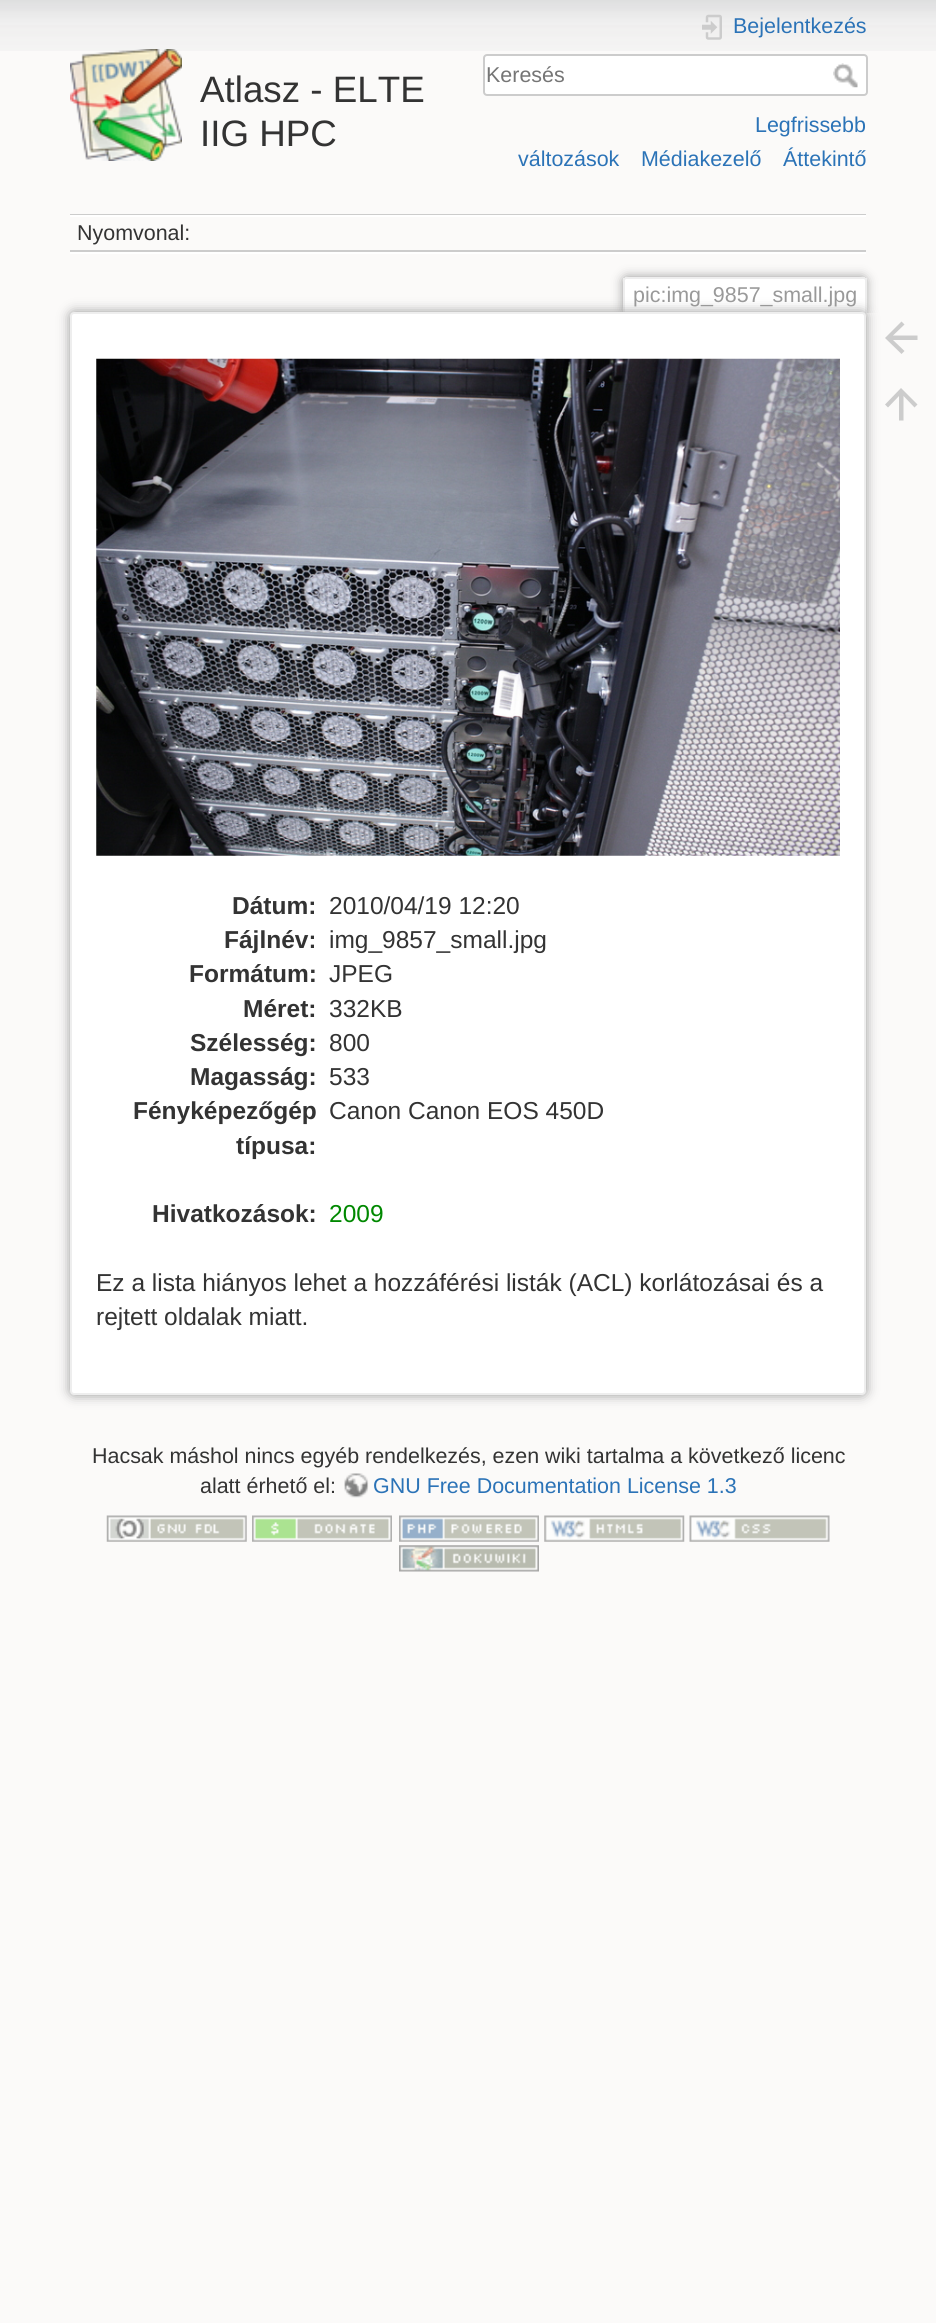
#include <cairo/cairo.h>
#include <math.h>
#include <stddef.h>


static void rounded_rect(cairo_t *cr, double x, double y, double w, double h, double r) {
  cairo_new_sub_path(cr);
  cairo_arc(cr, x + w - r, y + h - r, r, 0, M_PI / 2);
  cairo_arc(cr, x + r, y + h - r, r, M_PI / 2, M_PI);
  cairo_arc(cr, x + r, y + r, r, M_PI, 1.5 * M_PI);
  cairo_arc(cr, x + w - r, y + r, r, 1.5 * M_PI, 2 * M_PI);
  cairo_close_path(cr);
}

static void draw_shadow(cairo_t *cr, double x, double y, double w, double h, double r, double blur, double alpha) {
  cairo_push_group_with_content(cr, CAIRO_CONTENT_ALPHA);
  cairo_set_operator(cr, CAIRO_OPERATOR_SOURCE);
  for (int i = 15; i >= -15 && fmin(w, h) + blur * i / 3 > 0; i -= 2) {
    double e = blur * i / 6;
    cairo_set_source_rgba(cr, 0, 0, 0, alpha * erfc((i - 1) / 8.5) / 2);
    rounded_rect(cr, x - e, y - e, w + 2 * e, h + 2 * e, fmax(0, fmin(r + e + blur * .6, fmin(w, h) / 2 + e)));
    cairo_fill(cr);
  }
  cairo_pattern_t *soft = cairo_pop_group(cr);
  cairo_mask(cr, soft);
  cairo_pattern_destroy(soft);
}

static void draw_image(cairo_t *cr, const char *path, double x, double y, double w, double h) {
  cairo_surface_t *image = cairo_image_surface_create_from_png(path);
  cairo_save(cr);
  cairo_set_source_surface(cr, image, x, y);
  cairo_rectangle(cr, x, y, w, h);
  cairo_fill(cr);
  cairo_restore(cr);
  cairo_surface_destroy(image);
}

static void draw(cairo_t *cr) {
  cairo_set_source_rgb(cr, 251 / 255.0, 250 / 255.0, 249 / 255.0);
  cairo_paint(cr);
  draw_image(cr, "images/1.png", 0, 0, 936, 51);
  draw_image(cr, "images/2.png", 70, 49, 112, 112);
  draw_image(cr, "images/3.png", 702, 14, 20, 26);
  cairo_set_source_rgb(cr, 1, 1, 1);
  rounded_rect(cr, 484, 55, 383, 40, 3);
  cairo_fill_preserve(cr);
  cairo_set_source_rgb(cr, 204 / 255.0, 204 / 255.0, 204 / 255.0);
  cairo_stroke(cr);
  draw_image(cr, "images/4.png", 833, 63, 25, 25);
  cairo_rectangle(cr, 70, 214, 796, 1);
  cairo_fill(cr);
  cairo_set_source_rgb(cr, 1, 1, 1);
  cairo_rectangle(cr, 70, 252, 796, 2);
  cairo_fill(cr);
  cairo_rectangle(cr, 70, 215, 796, 2);
  cairo_fill(cr);
  cairo_set_source_rgb(cr, 204 / 255.0, 204 / 255.0, 204 / 255.0);
  cairo_rectangle(cr, 70, 250, 796, 2);
  cairo_fill(cr);
  cairo_save(cr);
  cairo_rectangle(cr, 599, 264, 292, 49);
  cairo_clip(cr);
  cairo_set_source_rgb(cr, 153 / 255.0, 153 / 255.0, 153 / 255.0);
  draw_shadow(cr, 623, 277, 243, 36, 4, 5.5, 1);
  cairo_restore(cr);
  cairo_set_source_rgb(cr, 1, 1, 1);
  cairo_new_path(cr);
  cairo_move_to(cr, 627, 278);
  cairo_line_to(cr, 863, 278);
  cairo_curve_to(cr, 864, 278, 865, 279, 865, 280);
  cairo_line_to(cr, 865, 313);
  cairo_line_to(cr, 625, 313);
  cairo_line_to(cr, 625, 280);
  cairo_curve_to(cr, 625, 279, 626, 278, 627, 278);
  cairo_close_path(cr);
  cairo_fill(cr);
  cairo_set_source_rgb(cr, 238 / 255.0, 238 / 255.0, 238 / 255.0);
  cairo_rectangle(cr, 625, 277, 240, 2);
  cairo_fill(cr);
  cairo_rectangle(cr, 865, 278, 2, 35);
  cairo_fill(cr);
  cairo_rectangle(cr, 623, 278, 2, 35);
  cairo_fill(cr);
  cairo_set_source_rgb(cr, 153 / 255.0, 153 / 255.0, 153 / 255.0);
  draw_shadow(cr, 70, 312, 796, 1083, 4, 6, 1);
  cairo_set_source_rgb(cr, 1, 1, 1);
  rounded_rect(cr, 71, 313, 794, 1081, 3);
  cairo_fill_preserve(cr);
  cairo_set_source_rgb(cr, 238 / 255.0, 238 / 255.0, 238 / 255.0);
  cairo_stroke(cr);
  draw_image(cr, "images/5.png", 96, 358, 744, 498);
  cairo_set_source_rgb(cr, 204 / 255.0, 204 / 255.0, 204 / 255.0);
  cairo_new_path(cr);
  cairo_move_to(cr, 917.5, 335.5);
  cairo_line_to(cr, 917.5, 340);
  cairo_line_to(cr, 893, 340);
  cairo_line_to(cr, 904.5, 351);
  cairo_line_to(cr, 901.5, 354);
  cairo_line_to(cr, 885, 338);
  cairo_line_to(cr, 901.5, 321.5);
  cairo_line_to(cr, 904.5, 324.5);
  cairo_line_to(cr, 893, 335.5);
  cairo_close_path(cr);
  cairo_fill(cr);
  cairo_new_path(cr);
  cairo_move_to(cr, 903.5, 420.5);
  cairo_line_to(cr, 899, 420.5);
  cairo_line_to(cr, 899, 396);
  cairo_line_to(cr, 888, 407.5);
  cairo_line_to(cr, 885, 404.5);
  cairo_line_to(cr, 901, 388);
  cairo_line_to(cr, 917.5, 404.5);
  cairo_line_to(cr, 914.5, 407.5);
  cairo_line_to(cr, 903.5, 396);
  cairo_close_path(cr);
  cairo_fill(cr);
  draw_image(cr, "images/6.png", 344, 1473, 25, 25);
  draw_image(cr, "images/7.png", 106, 1515, 141, 27);
  draw_image(cr, "images/8.png", 252, 1515, 140, 27);
  draw_image(cr, "images/9.png", 399, 1515, 140, 27);
  draw_image(cr, "images/10.png", 544, 1515, 141, 27);
  draw_image(cr, "images/11.png", 689, 1515, 141, 27);
  draw_image(cr, "images/12.png", 399, 1545, 140, 27);
  cairo_select_font_face(cr, "Liberation Sans", CAIRO_FONT_SLANT_NORMAL, CAIRO_FONT_WEIGHT_NORMAL);
  cairo_set_font_size(cr, 36.75);
  cairo_set_source_rgb(cr, 51 / 255.0, 51 / 255.0, 51 / 255.0);
  cairo_move_to(cr, 200, 102);
  cairo_show_text(cr, "Atlasz - ELTE");
  cairo_move_to(cr, 200, 146);
  cairo_show_text(cr, "IIG HPC");
  cairo_set_font_size(cr, 21.45);
  cairo_set_source_rgb(cr, 43 / 255.0, 115 / 255.0, 183 / 255.0);
  cairo_move_to(cr, 733, 33);
  cairo_show_text(cr, "Bejelentkezés");
  cairo_set_source_rgb(cr, 117 / 255.0, 117 / 255.0, 117 / 255.0);
  cairo_move_to(cr, 486, 82);
  cairo_show_text(cr, "Keresés");
  cairo_set_source_rgb(cr, 43 / 255.0, 115 / 255.0, 183 / 255.0);
  cairo_move_to(cr, 755, 132);
  cairo_show_text(cr, "Legfrissebb");
  cairo_move_to(cr, 518, 166);
  cairo_show_text(cr, "változások");
  cairo_move_to(cr, 641, 166);
  cairo_show_text(cr, "Médiakezelő");
  cairo_move_to(cr, 783, 166);
  cairo_show_text(cr, "Áttekintő");
  cairo_set_source_rgb(cr, 51 / 255.0, 51 / 255.0, 51 / 255.0);
  cairo_move_to(cr, 77, 240);
  cairo_show_text(cr, "Nyomvonal:");
  cairo_set_source_rgb(cr, 153 / 255.0, 153 / 255.0, 153 / 255.0);
  cairo_move_to(cr, 633, 302);
  cairo_show_text(cr, "pic:img_9857_small.jpg");
  cairo_select_font_face(cr, "Liberation Sans", CAIRO_FONT_SLANT_NORMAL, CAIRO_FONT_WEIGHT_BOLD);
  cairo_set_font_size(cr, 24.5);
  cairo_set_source_rgb(cr, 51 / 255.0, 51 / 255.0, 51 / 255.0);
  cairo_move_to(cr, 232, 914);
  cairo_show_text(cr, "Dátum:");
  cairo_select_font_face(cr, "Liberation Sans", CAIRO_FONT_SLANT_NORMAL, CAIRO_FONT_WEIGHT_NORMAL);
  cairo_move_to(cr, 329, 914);
  cairo_show_text(cr, "2010/04/19 12:20");
  cairo_select_font_face(cr, "Liberation Sans", CAIRO_FONT_SLANT_NORMAL, CAIRO_FONT_WEIGHT_BOLD);
  cairo_move_to(cr, 224, 948);
  cairo_show_text(cr, "Fájlnév:");
  cairo_select_font_face(cr, "Liberation Sans", CAIRO_FONT_SLANT_NORMAL, CAIRO_FONT_WEIGHT_NORMAL);
  cairo_move_to(cr, 329, 948);
  cairo_show_text(cr, "img_9857_small.jpg");
  cairo_select_font_face(cr, "Liberation Sans", CAIRO_FONT_SLANT_NORMAL, CAIRO_FONT_WEIGHT_BOLD);
  cairo_move_to(cr, 189, 982);
  cairo_show_text(cr, "Formátum:");
  cairo_select_font_face(cr, "Liberation Sans", CAIRO_FONT_SLANT_NORMAL, CAIRO_FONT_WEIGHT_NORMAL);
  cairo_move_to(cr, 329, 982);
  cairo_show_text(cr, "JPEG");
  cairo_select_font_face(cr, "Liberation Sans", CAIRO_FONT_SLANT_NORMAL, CAIRO_FONT_WEIGHT_BOLD);
  cairo_move_to(cr, 243, 1017);
  cairo_show_text(cr, "Méret:");
  cairo_select_font_face(cr, "Liberation Sans", CAIRO_FONT_SLANT_NORMAL, CAIRO_FONT_WEIGHT_NORMAL);
  cairo_move_to(cr, 329, 1017);
  cairo_show_text(cr, "332KB");
  cairo_select_font_face(cr, "Liberation Sans", CAIRO_FONT_SLANT_NORMAL, CAIRO_FONT_WEIGHT_BOLD);
  cairo_move_to(cr, 190, 1051);
  cairo_show_text(cr, "Szélesség:");
  cairo_select_font_face(cr, "Liberation Sans", CAIRO_FONT_SLANT_NORMAL, CAIRO_FONT_WEIGHT_NORMAL);
  cairo_move_to(cr, 329, 1051);
  cairo_show_text(cr, "800");
  cairo_select_font_face(cr, "Liberation Sans", CAIRO_FONT_SLANT_NORMAL, CAIRO_FONT_WEIGHT_BOLD);
  cairo_move_to(cr, 190, 1085);
  cairo_show_text(cr, "Magasság:");
  cairo_select_font_face(cr, "Liberation Sans", CAIRO_FONT_SLANT_NORMAL, CAIRO_FONT_WEIGHT_NORMAL);
  cairo_move_to(cr, 329, 1085);
  cairo_show_text(cr, "533");
  cairo_select_font_face(cr, "Liberation Sans", CAIRO_FONT_SLANT_NORMAL, CAIRO_FONT_WEIGHT_BOLD);
  cairo_move_to(cr, 133, 1119);
  cairo_show_text(cr, "Fényképezőgép");
  cairo_move_to(cr, 236, 1154);
  cairo_show_text(cr, "típusa:");
  cairo_select_font_face(cr, "Liberation Sans", CAIRO_FONT_SLANT_NORMAL, CAIRO_FONT_WEIGHT_NORMAL);
  cairo_move_to(cr, 329, 1119);
  cairo_show_text(cr, "Canon Canon EOS 450D");
  cairo_select_font_face(cr, "Liberation Sans", CAIRO_FONT_SLANT_NORMAL, CAIRO_FONT_WEIGHT_BOLD);
  cairo_move_to(cr, 152, 1222);
  cairo_show_text(cr, "Hivatkozások:");
  cairo_select_font_face(cr, "Liberation Sans", CAIRO_FONT_SLANT_NORMAL, CAIRO_FONT_WEIGHT_NORMAL);
  cairo_set_source_rgb(cr, 0, 136 / 255.0, 0);
  cairo_move_to(cr, 329, 1222);
  cairo_show_text(cr, "2009");
  cairo_set_source_rgb(cr, 51 / 255.0, 51 / 255.0, 51 / 255.0);
  cairo_move_to(cr, 96, 1291);
  cairo_show_text(cr, "Ez a lista hiányos lehet a hozzáférési listák (ACL) korlátozásai és a");
  cairo_move_to(cr, 96, 1325);
  cairo_show_text(cr, "rejtett oldalak miatt.");
  cairo_set_font_size(cr, 21.45);
  cairo_move_to(cr, 92, 1463);
  cairo_show_text(cr, "Hacsak máshol nincs egyéb rendelkezés, ezen wiki tartalma a következő licenc");
  cairo_move_to(cr, 200, 1493);
  cairo_show_text(cr, "alatt érhető el:");
  cairo_set_source_rgb(cr, 43 / 255.0, 115 / 255.0, 183 / 255.0);
  cairo_move_to(cr, 373, 1493);
  cairo_show_text(cr, "GNU Free Documentation License 1.3");
}

int main(void) {
  cairo_surface_t *surface = cairo_image_surface_create(CAIRO_FORMAT_RGB24, 936, 2323);
  cairo_t *cr = cairo_create(surface);
  cairo_font_options_t *options = cairo_font_options_create();
  cairo_font_options_set_hint_metrics(options, CAIRO_HINT_METRICS_OFF);
  cairo_font_options_set_hint_style(options, CAIRO_HINT_STYLE_NONE);
  cairo_set_font_options(cr, options);
  cairo_set_miter_limit(cr, 4);
  draw(cr);
  cairo_surface_write_to_png(surface, "out.png");
  cairo_font_options_destroy(options);
  cairo_destroy(cr);
  cairo_surface_destroy(surface);
  return 0;
}
